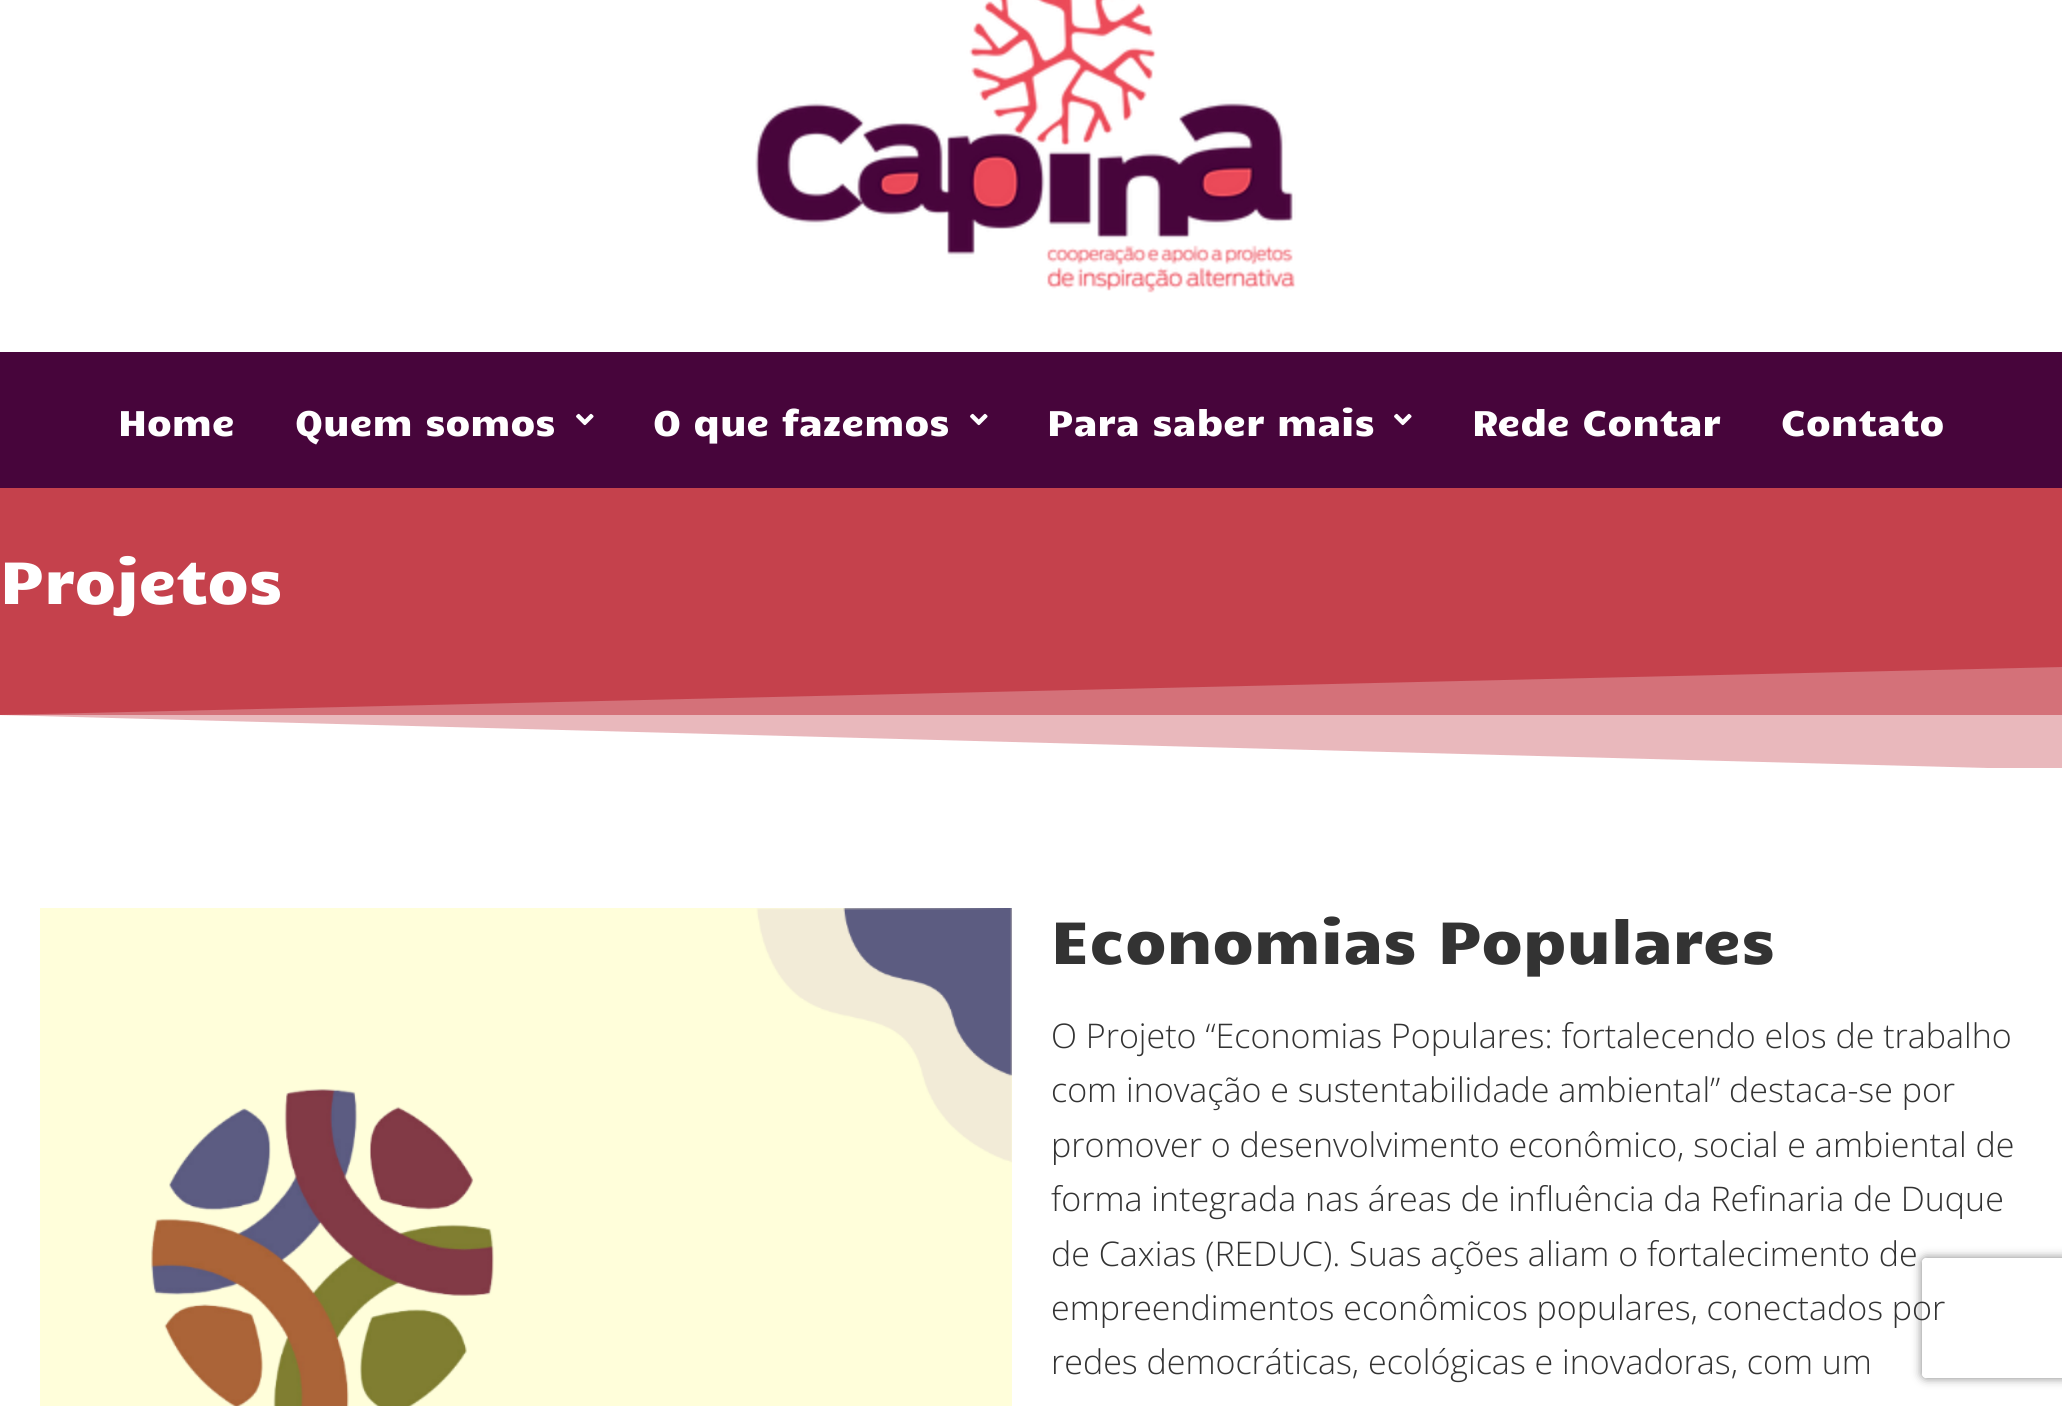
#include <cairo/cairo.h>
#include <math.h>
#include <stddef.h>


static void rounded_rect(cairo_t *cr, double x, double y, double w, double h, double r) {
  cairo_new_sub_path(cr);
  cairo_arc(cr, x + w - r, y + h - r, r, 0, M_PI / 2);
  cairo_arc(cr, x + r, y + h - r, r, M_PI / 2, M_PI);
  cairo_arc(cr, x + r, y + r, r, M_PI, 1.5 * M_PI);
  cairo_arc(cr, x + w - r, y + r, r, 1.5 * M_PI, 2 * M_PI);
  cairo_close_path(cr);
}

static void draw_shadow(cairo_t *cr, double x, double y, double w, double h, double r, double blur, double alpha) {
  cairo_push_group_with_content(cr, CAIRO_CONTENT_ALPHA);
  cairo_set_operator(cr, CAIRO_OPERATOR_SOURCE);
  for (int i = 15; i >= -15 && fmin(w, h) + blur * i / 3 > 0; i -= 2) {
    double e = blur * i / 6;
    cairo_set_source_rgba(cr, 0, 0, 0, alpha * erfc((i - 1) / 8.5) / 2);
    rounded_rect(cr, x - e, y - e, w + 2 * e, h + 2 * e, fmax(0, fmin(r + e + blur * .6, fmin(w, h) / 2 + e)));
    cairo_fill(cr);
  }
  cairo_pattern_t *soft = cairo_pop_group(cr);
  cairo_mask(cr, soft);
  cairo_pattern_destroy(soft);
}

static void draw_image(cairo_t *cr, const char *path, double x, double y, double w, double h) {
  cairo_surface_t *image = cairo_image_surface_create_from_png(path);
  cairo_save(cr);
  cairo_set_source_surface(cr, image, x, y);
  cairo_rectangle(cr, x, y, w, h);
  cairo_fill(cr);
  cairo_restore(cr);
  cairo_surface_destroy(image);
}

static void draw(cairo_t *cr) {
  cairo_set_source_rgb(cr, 1, 1, 1);
  cairo_paint(cr);
  draw_image(cr, "images/1.png", 755, 0, 541, 293);
  cairo_set_source_rgb(cr, 71 / 255.0, 5 / 255.0, 59 / 255.0);
  cairo_rectangle(cr, 0, 352, 2062, 136);
  cairo_fill(cr);
  draw_image(cr, "images/2.png", 576, 413, 18, 13);
  draw_image(cr, "images/2.png", 970, 413, 18, 13);
  draw_image(cr, "images/2.png", 1394, 413, 18, 13);
  cairo_set_source_rgb(cr, 197 / 255.0, 65 / 255.0, 76 / 255.0);
  cairo_rectangle(cr, 0, 488, 2062, 227);
  cairo_fill(cr);
  cairo_set_source_rgb(cr, 226 / 255.0, 160 / 255.0, 166 / 255.0);
  cairo_rectangle(cr, 0, 715, 2062, 53);
  cairo_fill(cr);
  cairo_set_source_rgb(cr, 1, 1, 1);
  cairo_new_path(cr);
  cairo_move_to(cr, 2062, 770);
  cairo_line_to(cr, -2, 770);
  cairo_line_to(cr, -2, 715);
  cairo_close_path(cr);
  cairo_fill(cr);
  cairo_set_source_rgba(cr, 1, 1, 1, 0.25);
  cairo_new_path(cr);
  cairo_move_to(cr, -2, 770);
  cairo_line_to(cr, 2062, 770);
  cairo_line_to(cr, 2062, 667);
  cairo_line_to(cr, -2, 715);
  cairo_close_path(cr);
  cairo_fill(cr);
  draw_image(cr, "images/3.png", 40, 908, 972, 498);
  cairo_save(cr);
  cairo_set_fill_rule(cr, CAIRO_FILL_RULE_EVEN_ODD);
  cairo_new_path(cr);
  cairo_move_to(cr, 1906, 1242);
  cairo_line_to(cr, 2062, 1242);
  cairo_line_to(cr, 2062, 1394);
  cairo_line_to(cr, 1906, 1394);
  cairo_close_path(cr);
  cairo_move_to(cr, 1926, 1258);
  cairo_line_to(cr, 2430, 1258);
  cairo_curve_to(cr, 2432, 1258, 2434, 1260, 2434, 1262);
  cairo_line_to(cr, 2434, 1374);
  cairo_curve_to(cr, 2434, 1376, 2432, 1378, 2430, 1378);
  cairo_line_to(cr, 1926, 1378);
  cairo_curve_to(cr, 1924, 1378, 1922, 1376, 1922, 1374);
  cairo_line_to(cr, 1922, 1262);
  cairo_curve_to(cr, 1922, 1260, 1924, 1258, 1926, 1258);
  cairo_close_path(cr);
  cairo_clip(cr);
  cairo_set_source_rgb(cr, 128 / 255.0, 128 / 255.0, 128 / 255.0);
  draw_shadow(cr, 1922, 1258, 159, 120, 4, 5, 1);
  cairo_restore(cr);
  cairo_select_font_face(cr, "Candal", CAIRO_FONT_SLANT_NORMAL, CAIRO_FONT_WEIGHT_NORMAL);
  cairo_set_font_size(cr, 36);
  cairo_set_source_rgb(cr, 1, 1, 1);
  cairo_move_to(cr, 118, 436);
  cairo_show_text(cr, "Home");
  cairo_move_to(cr, 295, 436);
  cairo_show_text(cr, "Quem somos");
  cairo_move_to(cr, 653, 436);
  cairo_show_text(cr, "O que fazemos");
  cairo_move_to(cr, 1047, 436);
  cairo_show_text(cr, "Para saber mais");
  cairo_move_to(cr, 1472, 436);
  cairo_show_text(cr, "Rede Contar");
  cairo_move_to(cr, 1781, 436);
  cairo_show_text(cr, "Contato");
  cairo_set_font_size(cr, 60);
  cairo_move_to(cr, 0, 604);
  cairo_show_text(cr, "Projetos");
  cairo_set_source_rgb(cr, 51 / 255.0, 51 / 255.0, 51 / 255.0);
  cairo_move_to(cr, 1051, 964);
  cairo_show_text(cr, "Economias Populares");
  cairo_select_font_face(cr, "Open Sans Light", CAIRO_FONT_SLANT_NORMAL, CAIRO_FONT_WEIGHT_NORMAL);
  cairo_set_font_size(cr, 34);
  cairo_move_to(cr, 1051, 1048);
  cairo_show_text(cr, "O Projeto “Economias Populares: fortalecendo elos de trabalho");
  cairo_move_to(cr, 1051, 1102);
  cairo_show_text(cr, "com inovação e sustentabilidade ambiental” destaca-se por");
  cairo_move_to(cr, 1051, 1157);
  cairo_show_text(cr, "promover o desenvolvimento econômico, social e ambiental de");
  cairo_move_to(cr, 1051, 1211);
  cairo_show_text(cr, "forma integrada nas áreas de influência da Refinaria de Duque");
  cairo_move_to(cr, 1051, 1266);
  cairo_show_text(cr, "de Caxias (REDUC). Suas ações aliam o fortalecimento de");
  cairo_move_to(cr, 1051, 1320);
  cairo_show_text(cr, "empreendimentos econômicos populares, conectados por");
  cairo_move_to(cr, 1051, 1374);
  cairo_show_text(cr, "redes democráticas, ecológicas e inovadoras, com um");
}

int main(void) {
  cairo_surface_t *surface = cairo_image_surface_create(CAIRO_FORMAT_RGB24, 2062, 1406);
  cairo_t *cr = cairo_create(surface);
  cairo_font_options_t *options = cairo_font_options_create();
  cairo_font_options_set_hint_metrics(options, CAIRO_HINT_METRICS_OFF);
  cairo_font_options_set_hint_style(options, CAIRO_HINT_STYLE_NONE);
  cairo_set_font_options(cr, options);
  cairo_set_miter_limit(cr, 4);
  draw(cr);
  cairo_surface_write_to_png(surface, "out.png");
  cairo_font_options_destroy(options);
  cairo_destroy(cr);
  cairo_surface_destroy(surface);
  return 0;
}
